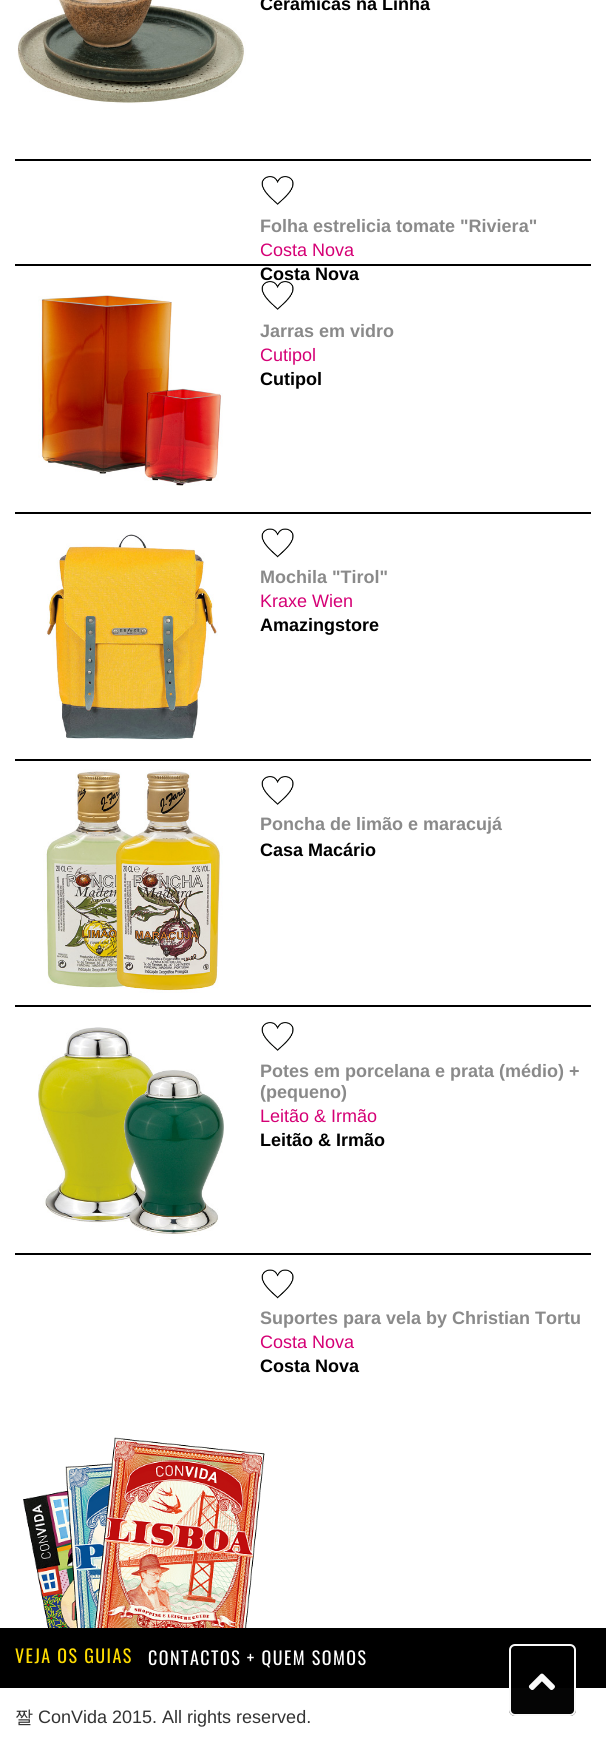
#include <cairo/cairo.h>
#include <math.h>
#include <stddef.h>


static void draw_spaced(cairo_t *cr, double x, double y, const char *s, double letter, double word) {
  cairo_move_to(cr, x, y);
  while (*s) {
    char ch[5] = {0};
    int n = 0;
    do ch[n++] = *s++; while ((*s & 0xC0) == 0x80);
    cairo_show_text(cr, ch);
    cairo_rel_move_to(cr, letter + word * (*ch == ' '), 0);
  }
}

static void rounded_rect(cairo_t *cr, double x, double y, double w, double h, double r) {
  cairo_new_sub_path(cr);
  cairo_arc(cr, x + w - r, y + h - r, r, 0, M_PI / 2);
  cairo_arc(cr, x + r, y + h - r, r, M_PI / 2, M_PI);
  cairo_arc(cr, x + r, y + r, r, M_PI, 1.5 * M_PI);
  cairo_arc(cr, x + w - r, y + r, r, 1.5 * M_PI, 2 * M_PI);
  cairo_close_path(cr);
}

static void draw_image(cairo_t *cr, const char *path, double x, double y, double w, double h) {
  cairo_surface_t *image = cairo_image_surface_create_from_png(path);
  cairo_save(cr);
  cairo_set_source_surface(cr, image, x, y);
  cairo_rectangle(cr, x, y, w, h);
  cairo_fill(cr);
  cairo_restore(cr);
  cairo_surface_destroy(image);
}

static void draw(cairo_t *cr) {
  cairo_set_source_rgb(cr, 1, 1, 1);
  cairo_paint(cr);
  draw_image(cr, "images/1.png", 17, 0, 229, 104);
  cairo_set_source_rgb(cr, 0, 0, 0);
  cairo_rectangle(cr, 15, 159, 576, 2);
  cairo_fill(cr);
  draw_image(cr, "images/2.png", 261, 176, 33, 29);
  cairo_rectangle(cr, 15, 264, 576, 2);
  cairo_fill(cr);
  draw_image(cr, "images/3.png", 38, 295, 185, 191);
  cairo_rectangle(cr, 15, 512, 576, 2);
  cairo_fill(cr);
  draw_image(cr, "images/5.png", 46, 534, 172, 206);
  draw_image(cr, "images/6.png", 261, 528, 33, 30);
  cairo_rectangle(cr, 15, 759, 576, 2);
  cairo_fill(cr);
  draw_image(cr, "images/7.png", 43, 769, 180, 224);
  draw_image(cr, "images/2.png", 261, 776, 33, 29);
  cairo_rectangle(cr, 15, 1005, 576, 2);
  cairo_fill(cr);
  draw_image(cr, "images/8.png", 38, 1027, 186, 209);
  draw_image(cr, "images/9.png", 261, 1022, 33, 29);
  cairo_rectangle(cr, 15, 1253, 576, 2);
  cairo_fill(cr);
  draw_image(cr, "images/6.png", 261, 1269, 33, 30);
  draw_image(cr, "images/10.png", 23, 1437, 242, 191);
  cairo_rectangle(cr, 0, 1628, 606, 60);
  cairo_fill(cr);
  cairo_set_source_rgba(cr, 0, 0, 0, 0.98);
  rounded_rect(cr, 509, 1644, 67, 72, 6);
  cairo_fill(cr);
  rounded_rect(cr, 510, 1645, 65, 70, 5);
  cairo_set_source_rgba(cr, 1, 1, 1, 0.98);
  cairo_stroke(cr);
  draw_image(cr, "images/11.png", 528, 1673, 27, 17);
  cairo_select_font_face(cr, "Liberation Sans", CAIRO_FONT_SLANT_NORMAL, CAIRO_FONT_WEIGHT_BOLD);
  cairo_set_font_size(cr, 18);
  cairo_set_source_rgb(cr, 0, 0, 0);
  cairo_move_to(cr, 260, 10);
  cairo_show_text(cr, "Cerâmicas na Linha");
  cairo_set_source_rgb(cr, 138 / 255.0, 138 / 255.0, 138 / 255.0);
  cairo_move_to(cr, 260, 232);
  cairo_show_text(cr, "Folha estrelicia tomate \"Riviera\"");
  cairo_select_font_face(cr, "Liberation Sans", CAIRO_FONT_SLANT_NORMAL, CAIRO_FONT_WEIGHT_NORMAL);
  cairo_set_source_rgb(cr, 213 / 255.0, 0, 117 / 255.0);
  cairo_move_to(cr, 260, 256);
  cairo_show_text(cr, "Costa Nova");
  cairo_select_font_face(cr, "Liberation Sans", CAIRO_FONT_SLANT_NORMAL, CAIRO_FONT_WEIGHT_BOLD);
  cairo_set_source_rgb(cr, 0, 0, 0);
  cairo_move_to(cr, 260, 280);
  cairo_show_text(cr, "Costa Nova");
  draw_image(cr, "images/4.png", 261, 280, 33, 30);
  cairo_set_source_rgb(cr, 138 / 255.0, 138 / 255.0, 138 / 255.0);
  cairo_move_to(cr, 260, 337);
  cairo_show_text(cr, "Jarras em vidro");
  cairo_select_font_face(cr, "Liberation Sans", CAIRO_FONT_SLANT_NORMAL, CAIRO_FONT_WEIGHT_NORMAL);
  cairo_set_source_rgb(cr, 213 / 255.0, 0, 117 / 255.0);
  cairo_move_to(cr, 260, 361);
  cairo_show_text(cr, "Cutipol");
  cairo_select_font_face(cr, "Liberation Sans", CAIRO_FONT_SLANT_NORMAL, CAIRO_FONT_WEIGHT_BOLD);
  cairo_set_source_rgb(cr, 0, 0, 0);
  cairo_move_to(cr, 260, 385);
  cairo_show_text(cr, "Cutipol");
  cairo_set_source_rgb(cr, 138 / 255.0, 138 / 255.0, 138 / 255.0);
  cairo_move_to(cr, 260, 583);
  cairo_show_text(cr, "Mochila \"Tirol\"");
  cairo_select_font_face(cr, "Liberation Sans", CAIRO_FONT_SLANT_NORMAL, CAIRO_FONT_WEIGHT_NORMAL);
  cairo_set_source_rgb(cr, 213 / 255.0, 0, 117 / 255.0);
  cairo_move_to(cr, 260, 607);
  cairo_show_text(cr, "Kraxe Wien");
  cairo_select_font_face(cr, "Liberation Sans", CAIRO_FONT_SLANT_NORMAL, CAIRO_FONT_WEIGHT_BOLD);
  cairo_set_source_rgb(cr, 0, 0, 0);
  cairo_move_to(cr, 260, 631);
  cairo_show_text(cr, "Amazingstore");
  cairo_set_source_rgb(cr, 138 / 255.0, 138 / 255.0, 138 / 255.0);
  cairo_move_to(cr, 260, 830);
  cairo_show_text(cr, "Poncha de limão e maracujá");
  cairo_set_source_rgb(cr, 0, 0, 0);
  cairo_move_to(cr, 260, 856);
  cairo_show_text(cr, "Casa Macário");
  cairo_set_source_rgb(cr, 138 / 255.0, 138 / 255.0, 138 / 255.0);
  cairo_move_to(cr, 260, 1077);
  cairo_show_text(cr, "Potes em porcelana e prata (médio) +");
  cairo_move_to(cr, 260, 1098);
  cairo_show_text(cr, "(pequeno)");
  cairo_select_font_face(cr, "Liberation Sans", CAIRO_FONT_SLANT_NORMAL, CAIRO_FONT_WEIGHT_NORMAL);
  cairo_set_source_rgb(cr, 213 / 255.0, 0, 117 / 255.0);
  cairo_move_to(cr, 260, 1122);
  cairo_show_text(cr, "Leitão & Irmão");
  cairo_select_font_face(cr, "Liberation Sans", CAIRO_FONT_SLANT_NORMAL, CAIRO_FONT_WEIGHT_BOLD);
  cairo_set_source_rgb(cr, 0, 0, 0);
  cairo_move_to(cr, 260, 1146);
  cairo_show_text(cr, "Leitão & Irmão");
  cairo_set_source_rgb(cr, 138 / 255.0, 138 / 255.0, 138 / 255.0);
  cairo_move_to(cr, 260, 1324);
  cairo_show_text(cr, "Suportes para vela by Christian Tortu");
  cairo_select_font_face(cr, "Liberation Sans", CAIRO_FONT_SLANT_NORMAL, CAIRO_FONT_WEIGHT_NORMAL);
  cairo_set_source_rgb(cr, 213 / 255.0, 0, 117 / 255.0);
  cairo_move_to(cr, 260, 1348);
  cairo_show_text(cr, "Costa Nova");
  cairo_select_font_face(cr, "Liberation Sans", CAIRO_FONT_SLANT_NORMAL, CAIRO_FONT_WEIGHT_BOLD);
  cairo_set_source_rgb(cr, 0, 0, 0);
  cairo_move_to(cr, 260, 1372);
  cairo_show_text(cr, "Costa Nova");
  cairo_select_font_face(cr, "Oswald", CAIRO_FONT_SLANT_NORMAL, CAIRO_FONT_WEIGHT_NORMAL);
  cairo_set_source_rgb(cr, 1, 220 / 255.0, 0);
  draw_spaced(cr, 15, 1663, "VEJA OS GUIAS", 1.5, 0);
  cairo_set_source_rgb(cr, 1, 1, 1);
  draw_spaced(cr, 148, 1665, "CONTACTOS + QUEM SOMOS", 1.5, 0);
  cairo_select_font_face(cr, "WenQuanYi Zen Hei Medium", CAIRO_FONT_SLANT_NORMAL, CAIRO_FONT_WEIGHT_NORMAL);
  cairo_set_source_rgb(cr, 51 / 255.0, 51 / 255.0, 51 / 255.0);
  cairo_move_to(cr, 15, 1723);
  cairo_show_text(cr, "짤");
  cairo_select_font_face(cr, "Liberation Sans", CAIRO_FONT_SLANT_NORMAL, CAIRO_FONT_WEIGHT_NORMAL);
  cairo_move_to(cr, 38, 1723);
  cairo_show_text(cr, "ConVida 2015. All rights reserved.");
}

int main(void) {
  cairo_surface_t *surface = cairo_image_surface_create(CAIRO_FORMAT_RGB24, 606, 1747);
  cairo_t *cr = cairo_create(surface);
  cairo_font_options_t *options = cairo_font_options_create();
  cairo_font_options_set_hint_metrics(options, CAIRO_HINT_METRICS_OFF);
  cairo_font_options_set_hint_style(options, CAIRO_HINT_STYLE_NONE);
  cairo_set_font_options(cr, options);
  cairo_set_miter_limit(cr, 4);
  draw(cr);
  cairo_surface_write_to_png(surface, "out.png");
  cairo_font_options_destroy(options);
  cairo_destroy(cr);
  cairo_surface_destroy(surface);
  return 0;
}
